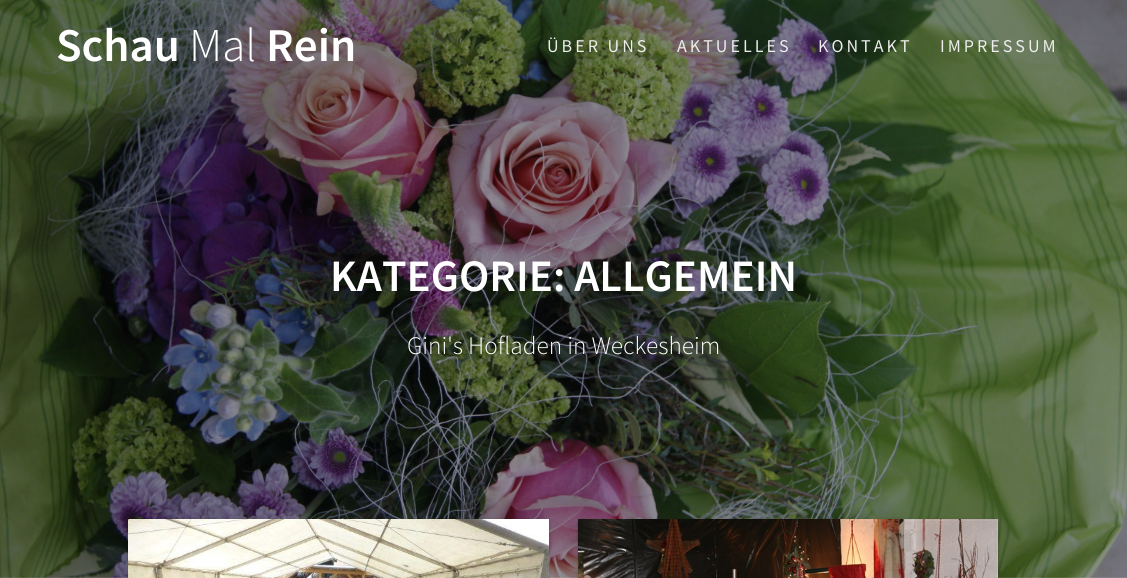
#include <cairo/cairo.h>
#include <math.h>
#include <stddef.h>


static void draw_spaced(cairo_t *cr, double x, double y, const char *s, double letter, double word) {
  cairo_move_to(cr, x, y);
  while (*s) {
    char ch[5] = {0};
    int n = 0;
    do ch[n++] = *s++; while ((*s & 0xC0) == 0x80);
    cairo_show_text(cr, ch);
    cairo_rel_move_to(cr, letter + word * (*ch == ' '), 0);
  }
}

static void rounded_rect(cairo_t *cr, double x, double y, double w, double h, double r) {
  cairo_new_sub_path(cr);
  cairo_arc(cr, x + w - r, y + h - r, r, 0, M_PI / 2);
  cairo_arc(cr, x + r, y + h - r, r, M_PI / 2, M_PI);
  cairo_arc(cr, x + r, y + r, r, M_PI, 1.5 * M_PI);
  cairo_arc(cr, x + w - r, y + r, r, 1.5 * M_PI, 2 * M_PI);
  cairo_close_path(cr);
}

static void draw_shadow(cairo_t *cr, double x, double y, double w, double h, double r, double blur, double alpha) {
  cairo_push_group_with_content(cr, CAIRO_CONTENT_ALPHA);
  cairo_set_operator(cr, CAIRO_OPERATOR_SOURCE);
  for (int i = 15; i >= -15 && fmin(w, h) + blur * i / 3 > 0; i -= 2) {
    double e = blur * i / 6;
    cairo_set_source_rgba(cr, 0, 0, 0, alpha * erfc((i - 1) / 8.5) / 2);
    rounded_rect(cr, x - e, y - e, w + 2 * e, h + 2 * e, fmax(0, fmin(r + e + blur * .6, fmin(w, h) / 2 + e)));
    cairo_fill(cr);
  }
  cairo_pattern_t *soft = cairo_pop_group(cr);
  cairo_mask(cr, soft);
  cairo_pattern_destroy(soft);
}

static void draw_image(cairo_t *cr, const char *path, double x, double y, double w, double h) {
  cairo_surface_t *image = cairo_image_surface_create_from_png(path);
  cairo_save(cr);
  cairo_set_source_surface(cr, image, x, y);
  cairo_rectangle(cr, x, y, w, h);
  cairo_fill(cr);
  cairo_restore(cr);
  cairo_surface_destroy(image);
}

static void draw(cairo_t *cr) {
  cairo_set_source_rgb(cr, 1, 1, 1);
  cairo_paint(cr);
  draw_image(cr, "images/1.png", 0, 0, 1127, 578);
  cairo_set_source_rgb(cr, 0, 0, 0);
  draw_shadow(cr, 128, 520, 421, 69, 3, 2.5, 0.12);
  draw_shadow(cr, 128, 520, 421, 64, 3, 1, 0.14);
  draw_image(cr, "images/2.png", 128, 519, 421, 59);
  draw_shadow(cr, 578, 520, 420, 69, 3, 2.5, 0.12);
  draw_shadow(cr, 578, 520, 420, 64, 3, 1, 0.14);
  draw_image(cr, "images/3.png", 578, 519, 420, 59);
  cairo_select_font_face(cr, "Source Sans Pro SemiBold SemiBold", CAIRO_FONT_SLANT_NORMAL, CAIRO_FONT_WEIGHT_NORMAL);
  cairo_set_font_size(cr, 47);
  cairo_set_source_rgb(cr, 1, 1, 1);
  cairo_move_to(cr, 56, 61);
  cairo_show_text(cr, "Schau");
  cairo_select_font_face(cr, "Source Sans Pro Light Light", CAIRO_FONT_SLANT_NORMAL, CAIRO_FONT_WEIGHT_NORMAL);
  cairo_move_to(cr, 189, 61);
  cairo_show_text(cr, "Mal");
  cairo_select_font_face(cr, "Source Sans Pro SemiBold SemiBold", CAIRO_FONT_SLANT_NORMAL, CAIRO_FONT_WEIGHT_NORMAL);
  cairo_move_to(cr, 266, 61);
  cairo_show_text(cr, "Rein");
  cairo_select_font_face(cr, "Source Sans Pro", CAIRO_FONT_SLANT_NORMAL, CAIRO_FONT_WEIGHT_NORMAL);
  cairo_set_font_size(cr, 18);
  cairo_set_source_rgb(cr, 237 / 255.0, 237 / 255.0, 237 / 255.0);
  draw_spaced(cr, 547, 52, "ÜBER UNS", 3, 0);
  draw_spaced(cr, 677, 52, "AKTUELLES", 3, 0);
  draw_spaced(cr, 818, 52, "KONTAKT", 3, 0);
  draw_spaced(cr, 940, 52, "IMPRESSUM", 3, 0);
  cairo_select_font_face(cr, "Source Sans Pro SemiBold SemiBold", CAIRO_FONT_SLANT_NORMAL, CAIRO_FONT_WEIGHT_NORMAL);
  cairo_set_font_size(cr, 45);
  cairo_set_source_rgb(cr, 1, 1, 1);
  cairo_move_to(cr, 330, 291);
  cairo_show_text(cr, "KATEGORIE: ALLGEMEIN");
  cairo_select_font_face(cr, "Source Sans Pro Light Light", CAIRO_FONT_SLANT_NORMAL, CAIRO_FONT_WEIGHT_NORMAL);
  cairo_set_font_size(cr, 25.25);
  cairo_move_to(cr, 407, 354);
  cairo_show_text(cr, "Gini's Hofladen in Weckesheim");
}

int main(void) {
  cairo_surface_t *surface = cairo_image_surface_create(CAIRO_FORMAT_RGB24, 1127, 578);
  cairo_t *cr = cairo_create(surface);
  cairo_font_options_t *options = cairo_font_options_create();
  cairo_font_options_set_hint_metrics(options, CAIRO_HINT_METRICS_OFF);
  cairo_font_options_set_hint_style(options, CAIRO_HINT_STYLE_NONE);
  cairo_set_font_options(cr, options);
  cairo_set_miter_limit(cr, 4);
  draw(cr);
  cairo_surface_write_to_png(surface, "out.png");
  cairo_font_options_destroy(options);
  cairo_destroy(cr);
  cairo_surface_destroy(surface);
  return 0;
}
